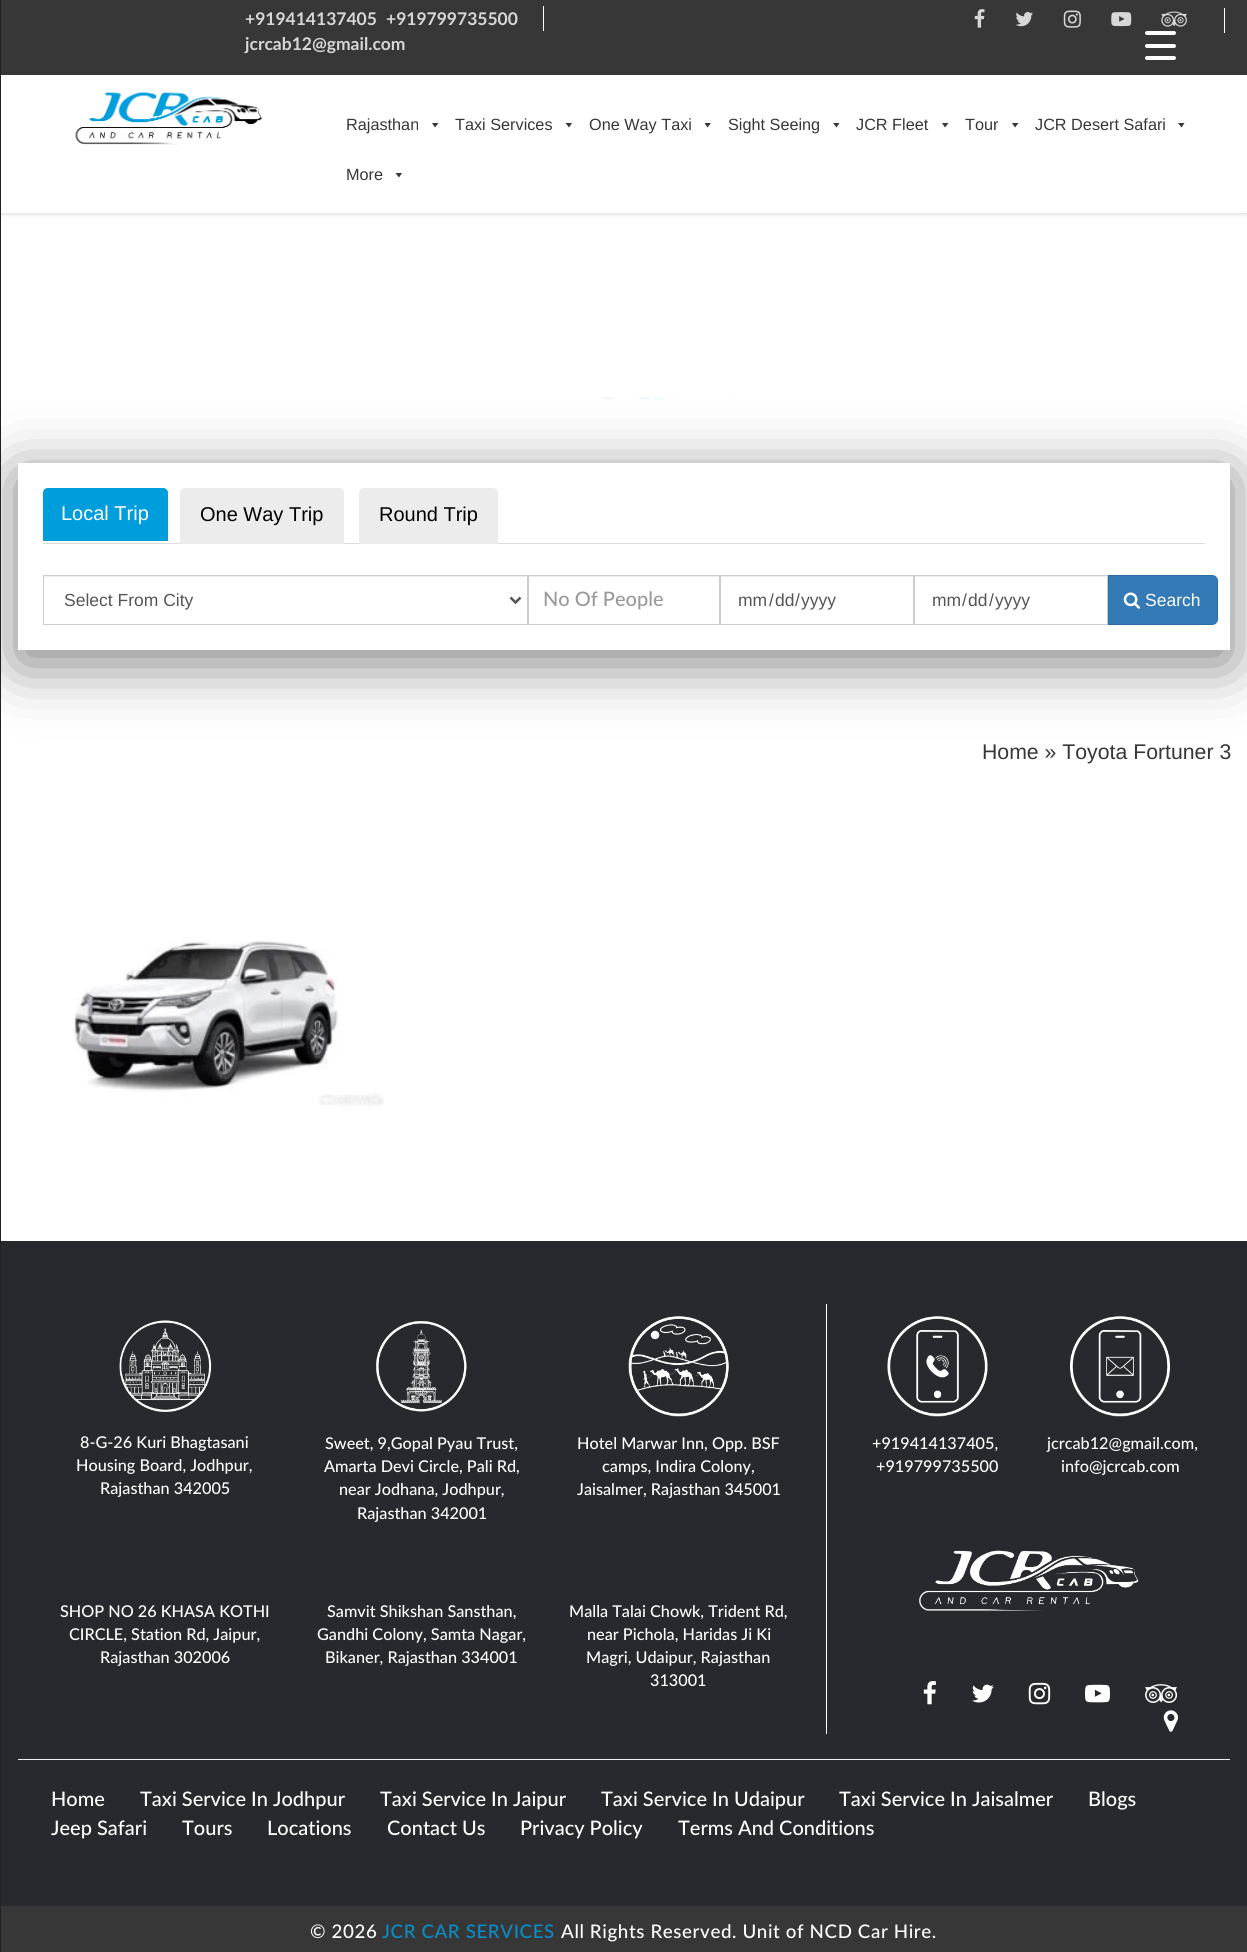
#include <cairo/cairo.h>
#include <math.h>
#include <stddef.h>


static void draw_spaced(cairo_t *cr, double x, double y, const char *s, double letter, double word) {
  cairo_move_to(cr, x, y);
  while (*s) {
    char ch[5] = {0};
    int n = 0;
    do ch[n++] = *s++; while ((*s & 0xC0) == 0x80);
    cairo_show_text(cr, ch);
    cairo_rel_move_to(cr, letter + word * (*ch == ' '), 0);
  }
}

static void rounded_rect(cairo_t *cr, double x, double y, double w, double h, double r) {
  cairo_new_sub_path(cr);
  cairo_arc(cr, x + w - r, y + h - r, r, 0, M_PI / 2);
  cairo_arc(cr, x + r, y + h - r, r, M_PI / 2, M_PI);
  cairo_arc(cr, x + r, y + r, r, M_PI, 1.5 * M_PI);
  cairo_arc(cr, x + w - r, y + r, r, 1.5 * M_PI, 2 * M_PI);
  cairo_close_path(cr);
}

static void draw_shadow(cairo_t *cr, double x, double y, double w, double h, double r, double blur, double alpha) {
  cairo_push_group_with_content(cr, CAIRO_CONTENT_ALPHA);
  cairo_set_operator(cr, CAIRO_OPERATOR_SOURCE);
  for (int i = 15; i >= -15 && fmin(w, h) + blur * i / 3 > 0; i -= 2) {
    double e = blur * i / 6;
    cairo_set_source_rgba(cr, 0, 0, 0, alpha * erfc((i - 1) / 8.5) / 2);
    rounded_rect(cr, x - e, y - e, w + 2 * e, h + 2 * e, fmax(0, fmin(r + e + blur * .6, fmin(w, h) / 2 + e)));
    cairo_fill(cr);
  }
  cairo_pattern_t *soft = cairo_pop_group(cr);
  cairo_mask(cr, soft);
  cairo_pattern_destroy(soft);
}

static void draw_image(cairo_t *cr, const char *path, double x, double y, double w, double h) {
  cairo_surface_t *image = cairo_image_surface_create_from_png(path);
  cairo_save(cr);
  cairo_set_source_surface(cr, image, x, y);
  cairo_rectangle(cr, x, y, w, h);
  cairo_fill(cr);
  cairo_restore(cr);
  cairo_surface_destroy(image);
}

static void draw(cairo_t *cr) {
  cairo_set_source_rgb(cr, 1, 1, 1);
  cairo_paint(cr);
  cairo_set_source_rgb(cr, 204 / 255.0, 204 / 255.0, 204 / 255.0);
  draw_shadow(cr, 0, 0, 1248, 213, 0, 3, 1);
  draw_image(cr, "images/7.png", 602, 397, 133, 3);
  cairo_save(cr);
  cairo_set_fill_rule(cr, CAIRO_FILL_RULE_EVEN_ODD);
  cairo_new_path(cr);
  cairo_move_to(cr, 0, 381);
  cairo_line_to(cr, 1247, 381);
  cairo_line_to(cr, 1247, 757);
  cairo_line_to(cr, 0, 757);
  cairo_close_path(cr);
  cairo_move_to(cr, 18, 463);
  cairo_line_to(cr, 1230, 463);
  cairo_line_to(cr, 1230, 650);
  cairo_line_to(cr, 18, 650);
  cairo_close_path(cr);
  cairo_clip(cr);
  cairo_set_source_rgb(cr, 0, 0, 0);
  draw_shadow(cr, 18, 475, 1212, 188, 0, 31, 0.5);
  cairo_restore(cr);
  cairo_set_source_rgb(cr, 33 / 255.0, 33 / 255.0, 33 / 255.0);
  cairo_rectangle(cr, 0, 0, 1, 1952);
  cairo_fill(cr);
  cairo_set_source_rgb(cr, 55 / 255.0, 55 / 255.0, 55 / 255.0);
  cairo_rectangle(cr, 1, 0, 1246, 75);
  cairo_fill(cr);
  cairo_set_source_rgb(cr, 1, 1, 1);
  cairo_rectangle(cr, 543, 6, 1, 25);
  cairo_fill(cr);
  cairo_rectangle(cr, 1224, 8, 1, 25);
  cairo_fill(cr);
  draw_image(cr, "images/1.png", 974, 9, 11, 19);
  draw_image(cr, "images/2.png", 1015, 12, 18, 15);
  draw_image(cr, "images/3.png", 1063, 10, 18, 18);
  draw_image(cr, "images/4.png", 1111, 12, 21, 15);
  draw_image(cr, "images/5.png", 1161, 11, 26, 16);
  cairo_rectangle(cr, 1, 75, 1246, 138);
  cairo_fill(cr);
  draw_image(cr, "images/6.png", 75, 91, 187, 54);
  cairo_set_source_rgb(cr, 55 / 255.0, 55 / 255.0, 55 / 255.0);
  cairo_new_path(cr);
  cairo_move_to(cr, 438.5, 123);
  cairo_line_to(cr, 435, 127.5);
  cairo_line_to(cr, 432, 123);
  cairo_close_path(cr);
  cairo_fill(cr);
  cairo_new_path(cr);
  cairo_move_to(cr, 572, 123);
  cairo_line_to(cr, 569, 127.5);
  cairo_line_to(cr, 565.5, 123);
  cairo_close_path(cr);
  cairo_fill(cr);
  cairo_new_path(cr);
  cairo_move_to(cr, 711, 123);
  cairo_line_to(cr, 707.5, 127.5);
  cairo_line_to(cr, 704.5, 123);
  cairo_close_path(cr);
  cairo_fill(cr);
  cairo_new_path(cr);
  cairo_move_to(cr, 839.5, 123);
  cairo_line_to(cr, 836.5, 127.5);
  cairo_line_to(cr, 833, 123);
  cairo_close_path(cr);
  cairo_fill(cr);
  cairo_new_path(cr);
  cairo_move_to(cr, 948.5, 123);
  cairo_line_to(cr, 945, 127.5);
  cairo_line_to(cr, 942, 123);
  cairo_close_path(cr);
  cairo_fill(cr);
  cairo_new_path(cr);
  cairo_move_to(cr, 1018.5, 123);
  cairo_line_to(cr, 1015, 127.5);
  cairo_line_to(cr, 1012, 123);
  cairo_close_path(cr);
  cairo_fill(cr);
  cairo_new_path(cr);
  cairo_move_to(cr, 1184.5, 123);
  cairo_line_to(cr, 1181.5, 127.5);
  cairo_line_to(cr, 1178, 123);
  cairo_close_path(cr);
  cairo_fill(cr);
  cairo_new_path(cr);
  cairo_move_to(cr, 402, 173);
  cairo_line_to(cr, 399, 177.5);
  cairo_line_to(cr, 395.5, 173);
  cairo_close_path(cr);
  cairo_fill(cr);
  cairo_set_source_rgb(cr, 1, 1, 1);
  rounded_rect(cr, 1145, 44, 31, 4, 2);
  cairo_fill(cr);
  rounded_rect(cr, 1145, 31, 31, 4, 2);
  cairo_fill(cr);
  rounded_rect(cr, 1145, 56, 31, 4, 2);
  cairo_fill(cr);
  cairo_set_source_rgb(cr, 221 / 255.0, 221 / 255.0, 221 / 255.0);
  cairo_rectangle(cr, 43, 543, 1162, 1);
  cairo_fill(cr);
  cairo_set_source_rgb(cr, 0, 157 / 255.0, 220 / 255.0);
  cairo_new_path(cr);
  cairo_move_to(cr, 48, 488);
  cairo_line_to(cr, 163, 488);
  cairo_curve_to(cr, 166, 488, 168, 490, 168, 493);
  cairo_line_to(cr, 168, 541);
  cairo_line_to(cr, 43, 541);
  cairo_line_to(cr, 43, 493);
  cairo_curve_to(cr, 43, 490, 45, 488, 48, 488);
  cairo_close_path(cr);
  cairo_fill(cr);
  cairo_set_source_rgb(cr, 236 / 255.0, 236 / 255.0, 236 / 255.0);
  cairo_new_path(cr);
  cairo_move_to(cr, 185, 488);
  cairo_line_to(cr, 339, 488);
  cairo_curve_to(cr, 342, 488, 344, 490, 344, 493);
  cairo_line_to(cr, 344, 544);
  cairo_line_to(cr, 180, 544);
  cairo_line_to(cr, 180, 493);
  cairo_curve_to(cr, 180, 490, 182, 488, 185, 488);
  cairo_close_path(cr);
  cairo_fill(cr);
  cairo_new_path(cr);
  cairo_move_to(cr, 364, 488);
  cairo_line_to(cr, 493, 488);
  cairo_curve_to(cr, 496, 488, 498, 490, 498, 493);
  cairo_line_to(cr, 498, 544);
  cairo_line_to(cr, 359, 544);
  cairo_line_to(cr, 359, 493);
  cairo_curve_to(cr, 359, 490, 361, 488, 364, 488);
  cairo_close_path(cr);
  cairo_fill(cr);
  cairo_rectangle(cr, 44, 576, 482, 1);
  cairo_fill(cr);
  cairo_rectangle(cr, 43.5, 575.5, 484, 49);
  cairo_set_source_rgb(cr, 204 / 255.0, 204 / 255.0, 204 / 255.0);
  cairo_set_line_width(cr, 1);
  cairo_stroke(cr);
  cairo_new_path(cr);
  cairo_move_to(cr, 510.5, 597.5);
  cairo_line_to(cr, 515.5, 602.5);
  cairo_line_to(cr, 520.5, 597.5);
  cairo_set_source_rgb(cr, 85 / 255.0, 85 / 255.0, 85 / 255.0);
  cairo_set_line_width(cr, 2.5);
  cairo_stroke(cr);
  cairo_set_source_rgb(cr, 236 / 255.0, 236 / 255.0, 236 / 255.0);
  cairo_rectangle(cr, 529, 576, 190, 1);
  cairo_fill(cr);
  cairo_rectangle(cr, 528.5, 575.5, 191, 49);
  cairo_set_source_rgb(cr, 204 / 255.0, 204 / 255.0, 204 / 255.0);
  cairo_set_line_width(cr, 1);
  cairo_stroke(cr);
  cairo_set_source_rgb(cr, 236 / 255.0, 236 / 255.0, 236 / 255.0);
  cairo_rectangle(cr, 721, 576, 192, 1);
  cairo_fill(cr);
  cairo_rectangle(cr, 720.5, 575.5, 193, 49);
  cairo_set_source_rgb(cr, 204 / 255.0, 204 / 255.0, 204 / 255.0);
  cairo_stroke(cr);
  cairo_set_source_rgb(cr, 236 / 255.0, 236 / 255.0, 236 / 255.0);
  cairo_rectangle(cr, 915, 576, 191, 1);
  cairo_fill(cr);
  cairo_rectangle(cr, 914.5, 575.5, 193, 49);
  cairo_set_source_rgb(cr, 204 / 255.0, 204 / 255.0, 204 / 255.0);
  cairo_stroke(cr);
  cairo_set_source_rgb(cr, 51 / 255.0, 122 / 255.0, 183 / 255.0);
  cairo_new_path(cr);
  cairo_move_to(cr, 1108.5, 575.5);
  cairo_line_to(cr, 1212, 575.5);
  cairo_curve_to(cr, 1215, 575.5, 1217.5, 578, 1217.5, 581);
  cairo_line_to(cr, 1217.5, 619);
  cairo_curve_to(cr, 1217.5, 622, 1215, 624.5, 1212, 624.5);
  cairo_line_to(cr, 1108.5, 624.5);
  cairo_close_path(cr);
  cairo_fill_preserve(cr);
  cairo_set_source_rgb(cr, 46 / 255.0, 109 / 255.0, 164 / 255.0);
  cairo_stroke(cr);
  draw_image(cr, "images/8.png", 1123, 592, 17, 17);
  draw_image(cr, "images/9.png", 73, 939, 311, 170);
  cairo_set_source_rgb(cr, 40 / 255.0, 41 / 255.0, 46 / 255.0);
  cairo_rectangle(cr, 1, 1241, 1246, 665);
  cairo_fill(cr);
  draw_image(cr, "images/10.png", 119, 1320, 93, 92);
  draw_image(cr, "images/11.png", 376, 1321, 91, 91);
  draw_image(cr, "images/12.png", 628, 1316, 101, 101);
  cairo_set_source_rgb(cr, 1, 1, 1);
  cairo_rectangle(cr, 826, 1304, 1, 430);
  cairo_fill(cr);
  draw_image(cr, "images/13.png", 887, 1316, 101, 101);
  draw_image(cr, "images/14.png", 1070, 1316, 100, 101);
  draw_image(cr, "images/15.png", 919, 1550, 220, 61);
  draw_image(cr, "images/16.png", 923, 1681, 13, 24);
  draw_image(cr, "images/17.png", 972, 1684, 22, 19);
  draw_image(cr, "images/18.png", 1028, 1682, 23, 23);
  draw_image(cr, "images/19.png", 1085, 1684, 25, 19);
  draw_image(cr, "images/20.png", 1145, 1684, 33, 19);
  draw_image(cr, "images/21.png", 1163, 1710, 15, 22);
  cairo_set_source_rgb(cr, 238 / 255.0, 238 / 255.0, 238 / 255.0);
  cairo_rectangle(cr, 18, 1759, 1212, 1);
  cairo_fill(cr);
  cairo_set_source_rgb(cr, 55 / 255.0, 55 / 255.0, 55 / 255.0);
  cairo_rectangle(cr, 1, 1906, 1246, 46);
  cairo_fill(cr);
  cairo_select_font_face(cr, "Lato", CAIRO_FONT_SLANT_NORMAL, CAIRO_FONT_WEIGHT_BOLD);
  cairo_set_font_size(cr, 17.5);
  cairo_set_source_rgb(cr, 215 / 255.0, 215 / 255.0, 215 / 255.0);
  cairo_move_to(cr, 245, 25);
  cairo_show_text(cr, "+919414137405");
  cairo_move_to(cr, 386, 25);
  cairo_show_text(cr, "+919799735500");
  cairo_move_to(cr, 245, 50);
  cairo_show_text(cr, "jcrcab12@gmail.com");
  cairo_select_font_face(cr, "Liberation Sans", CAIRO_FONT_SLANT_NORMAL, CAIRO_FONT_WEIGHT_NORMAL);
  cairo_set_font_size(cr, 16.25);
  cairo_set_source_rgb(cr, 55 / 255.0, 55 / 255.0, 55 / 255.0);
  cairo_move_to(cr, 346, 130);
  cairo_show_text(cr, "Rajasthan");
  cairo_move_to(cr, 455, 130);
  cairo_show_text(cr, "Taxi Services");
  cairo_move_to(cr, 589, 130);
  cairo_show_text(cr, "One Way Taxi");
  cairo_move_to(cr, 728, 130);
  cairo_show_text(cr, "Sight Seeing");
  cairo_move_to(cr, 856, 130);
  cairo_show_text(cr, "JCR Fleet");
  cairo_move_to(cr, 965, 130);
  cairo_show_text(cr, "Tour");
  cairo_move_to(cr, 1035, 130);
  cairo_show_text(cr, "JCR Desert Safari");
  cairo_move_to(cr, 346, 180);
  cairo_show_text(cr, "More");
  cairo_set_font_size(cr, 20);
  cairo_set_source_rgb(cr, 1, 1, 1);
  cairo_move_to(cr, 61, 520);
  cairo_show_text(cr, "Local Trip");
  cairo_set_source_rgb(cr, 0, 0, 0);
  cairo_move_to(cr, 200, 521);
  cairo_show_text(cr, "One Way Trip");
  cairo_move_to(cr, 379, 521);
  cairo_show_text(cr, "Round Trip");
  cairo_set_font_size(cr, 17.5);
  cairo_set_source_rgb(cr, 85 / 255.0, 85 / 255.0, 85 / 255.0);
  cairo_move_to(cr, 64, 606);
  cairo_show_text(cr, "Select From City");
  cairo_select_font_face(cr, "Lato Medium", CAIRO_FONT_SLANT_NORMAL, CAIRO_FONT_WEIGHT_NORMAL);
  cairo_set_font_size(cr, 20);
  cairo_set_source_rgb(cr, 153 / 255.0, 153 / 255.0, 153 / 255.0);
  cairo_move_to(cr, 543, 606);
  cairo_show_text(cr, "No Of People");
  cairo_select_font_face(cr, "Liberation Sans", CAIRO_FONT_SLANT_NORMAL, CAIRO_FONT_WEIGHT_NORMAL);
  cairo_set_font_size(cr, 17.5);
  cairo_set_source_rgb(cr, 85 / 255.0, 85 / 255.0, 85 / 255.0);
  cairo_move_to(cr, 738, 606);
  cairo_show_text(cr, "mm");
  cairo_move_to(cr, 769, 606);
  cairo_show_text(cr, "/");
  cairo_move_to(cr, 775, 606);
  cairo_show_text(cr, "dd");
  cairo_move_to(cr, 795, 606);
  cairo_show_text(cr, "/");
  cairo_move_to(cr, 801, 606);
  cairo_show_text(cr, "yyyy");
  cairo_move_to(cr, 932, 606);
  cairo_show_text(cr, "mm");
  cairo_move_to(cr, 962, 606);
  cairo_show_text(cr, "/");
  cairo_move_to(cr, 968, 606);
  cairo_show_text(cr, "dd");
  cairo_move_to(cr, 989, 606);
  cairo_show_text(cr, "/");
  cairo_move_to(cr, 995, 606);
  cairo_show_text(cr, "yyyy");
  cairo_set_source_rgb(cr, 1, 1, 1);
  cairo_move_to(cr, 1145, 606);
  cairo_show_text(cr, "Search");
  cairo_set_font_size(cr, 21.25);
  cairo_set_source_rgb(cr, 55 / 255.0, 55 / 255.0, 55 / 255.0);
  cairo_move_to(cr, 982, 759);
  cairo_show_text(cr, "Home » Toyota Fortuner 3");
  cairo_select_font_face(cr, "Lato Medium", CAIRO_FONT_SLANT_NORMAL, CAIRO_FONT_WEIGHT_NORMAL);
  cairo_set_font_size(cr, 16.25);
  cairo_set_source_rgb(cr, 1, 1, 1);
  cairo_move_to(cr, 80, 1448);
  cairo_show_text(cr, "8-G-26 Kuri Bhagtasani");
  cairo_move_to(cr, 76, 1471);
  cairo_show_text(cr, "Housing Board, Jodhpur,");
  cairo_move_to(cr, 100, 1494);
  cairo_show_text(cr, "Rajasthan 342005");
  cairo_move_to(cr, 325, 1449);
  cairo_show_text(cr, "Sweet, 9,Gopal Pyau Trust,");
  cairo_move_to(cr, 324, 1472);
  cairo_show_text(cr, "Amarta Devi Circle, Pali Rd,");
  cairo_move_to(cr, 339, 1495);
  cairo_show_text(cr, "near Jodhana, Jodhpur,");
  cairo_move_to(cr, 357, 1519);
  cairo_show_text(cr, "Rajasthan 342001");
  cairo_move_to(cr, 577, 1449);
  cairo_show_text(cr, "Hotel Marwar Inn, Opp. BSF");
  cairo_move_to(cr, 602, 1472);
  cairo_show_text(cr, "camps, Indira Colony,");
  cairo_move_to(cr, 577, 1495);
  cairo_show_text(cr, "Jaisalmer, Rajasthan 345001");
  cairo_move_to(cr, 60, 1617);
  cairo_show_text(cr, "SHOP NO 26 KHASA KOTHI");
  cairo_move_to(cr, 69, 1640);
  cairo_show_text(cr, "CIRCLE, Station Rd, Jaipur,");
  cairo_move_to(cr, 100, 1663);
  cairo_show_text(cr, "Rajasthan 302006");
  cairo_move_to(cr, 327, 1617);
  cairo_show_text(cr, "Samvit Shikshan Sansthan,");
  cairo_move_to(cr, 317, 1640);
  cairo_show_text(cr, "Gandhi Colony, Samta Nagar,");
  cairo_move_to(cr, 325, 1663);
  cairo_show_text(cr, "Bikaner, Rajasthan 334001");
  cairo_move_to(cr, 569, 1617);
  cairo_show_text(cr, "Malla Talai Chowk, Trident Rd,");
  cairo_move_to(cr, 587, 1640);
  cairo_show_text(cr, "near Pichola, Haridas Ji Ki");
  cairo_move_to(cr, 586, 1663);
  cairo_show_text(cr, "Magri, Udaipur, Rajasthan");
  cairo_move_to(cr, 650, 1686);
  cairo_show_text(cr, "313001");
  cairo_move_to(cr, 872, 1449);
  cairo_show_text(cr, "+919414137405,");
  cairo_move_to(cr, 876, 1472);
  cairo_show_text(cr, "+919799735500");
  cairo_move_to(cr, 1047, 1449);
  cairo_show_text(cr, "jcrcab12@gmail.com,");
  cairo_move_to(cr, 1061, 1472);
  cairo_show_text(cr, "info@jcrcab.com");
  cairo_set_font_size(cr, 20);
  cairo_move_to(cr, 51, 1806);
  cairo_show_text(cr, "Home");
  cairo_move_to(cr, 140, 1806);
  cairo_show_text(cr, "Taxi Service In Jodhpur");
  cairo_move_to(cr, 380, 1806);
  cairo_show_text(cr, "Taxi Service In Jaipur");
  cairo_move_to(cr, 601, 1806);
  cairo_show_text(cr, "Taxi Service In Udaipur");
  cairo_move_to(cr, 839, 1806);
  cairo_show_text(cr, "Taxi Service In Jaisalmer");
  cairo_move_to(cr, 1088, 1806);
  cairo_show_text(cr, "Blogs");
  cairo_move_to(cr, 51, 1835);
  cairo_show_text(cr, "Jeep Safari");
  cairo_move_to(cr, 182, 1835);
  cairo_show_text(cr, "Tours");
  cairo_move_to(cr, 267, 1835);
  cairo_show_text(cr, "Locations");
  cairo_move_to(cr, 387, 1835);
  cairo_show_text(cr, "Contact Us");
  cairo_move_to(cr, 520, 1835);
  cairo_show_text(cr, "Privacy Policy");
  cairo_move_to(cr, 678, 1835);
  cairo_show_text(cr, "Terms And Conditions");
  cairo_set_font_size(cr, 18.75);
  draw_spaced(cr, 310, 1938, "© 2026", 0.6, 0);
  cairo_set_source_rgb(cr, 11 / 255.0, 140 / 255.0, 197 / 255.0);
  draw_spaced(cr, 382, 1938, "JCR CAR SERVICES", 0.6, 0);
  cairo_set_source_rgb(cr, 1, 1, 1);
  draw_spaced(cr, 561, 1938, "All Rights Reserved. Unit of NCD Car Hire.", 0.6, 0);
}

int main(void) {
  cairo_surface_t *surface = cairo_image_surface_create(CAIRO_FORMAT_RGB24, 1247, 1952);
  cairo_t *cr = cairo_create(surface);
  cairo_font_options_t *options = cairo_font_options_create();
  cairo_font_options_set_hint_metrics(options, CAIRO_HINT_METRICS_OFF);
  cairo_font_options_set_hint_style(options, CAIRO_HINT_STYLE_NONE);
  cairo_set_font_options(cr, options);
  cairo_set_miter_limit(cr, 4);
  draw(cr);
  cairo_surface_write_to_png(surface, "out.png");
  cairo_font_options_destroy(options);
  cairo_destroy(cr);
  cairo_surface_destroy(surface);
  return 0;
}
